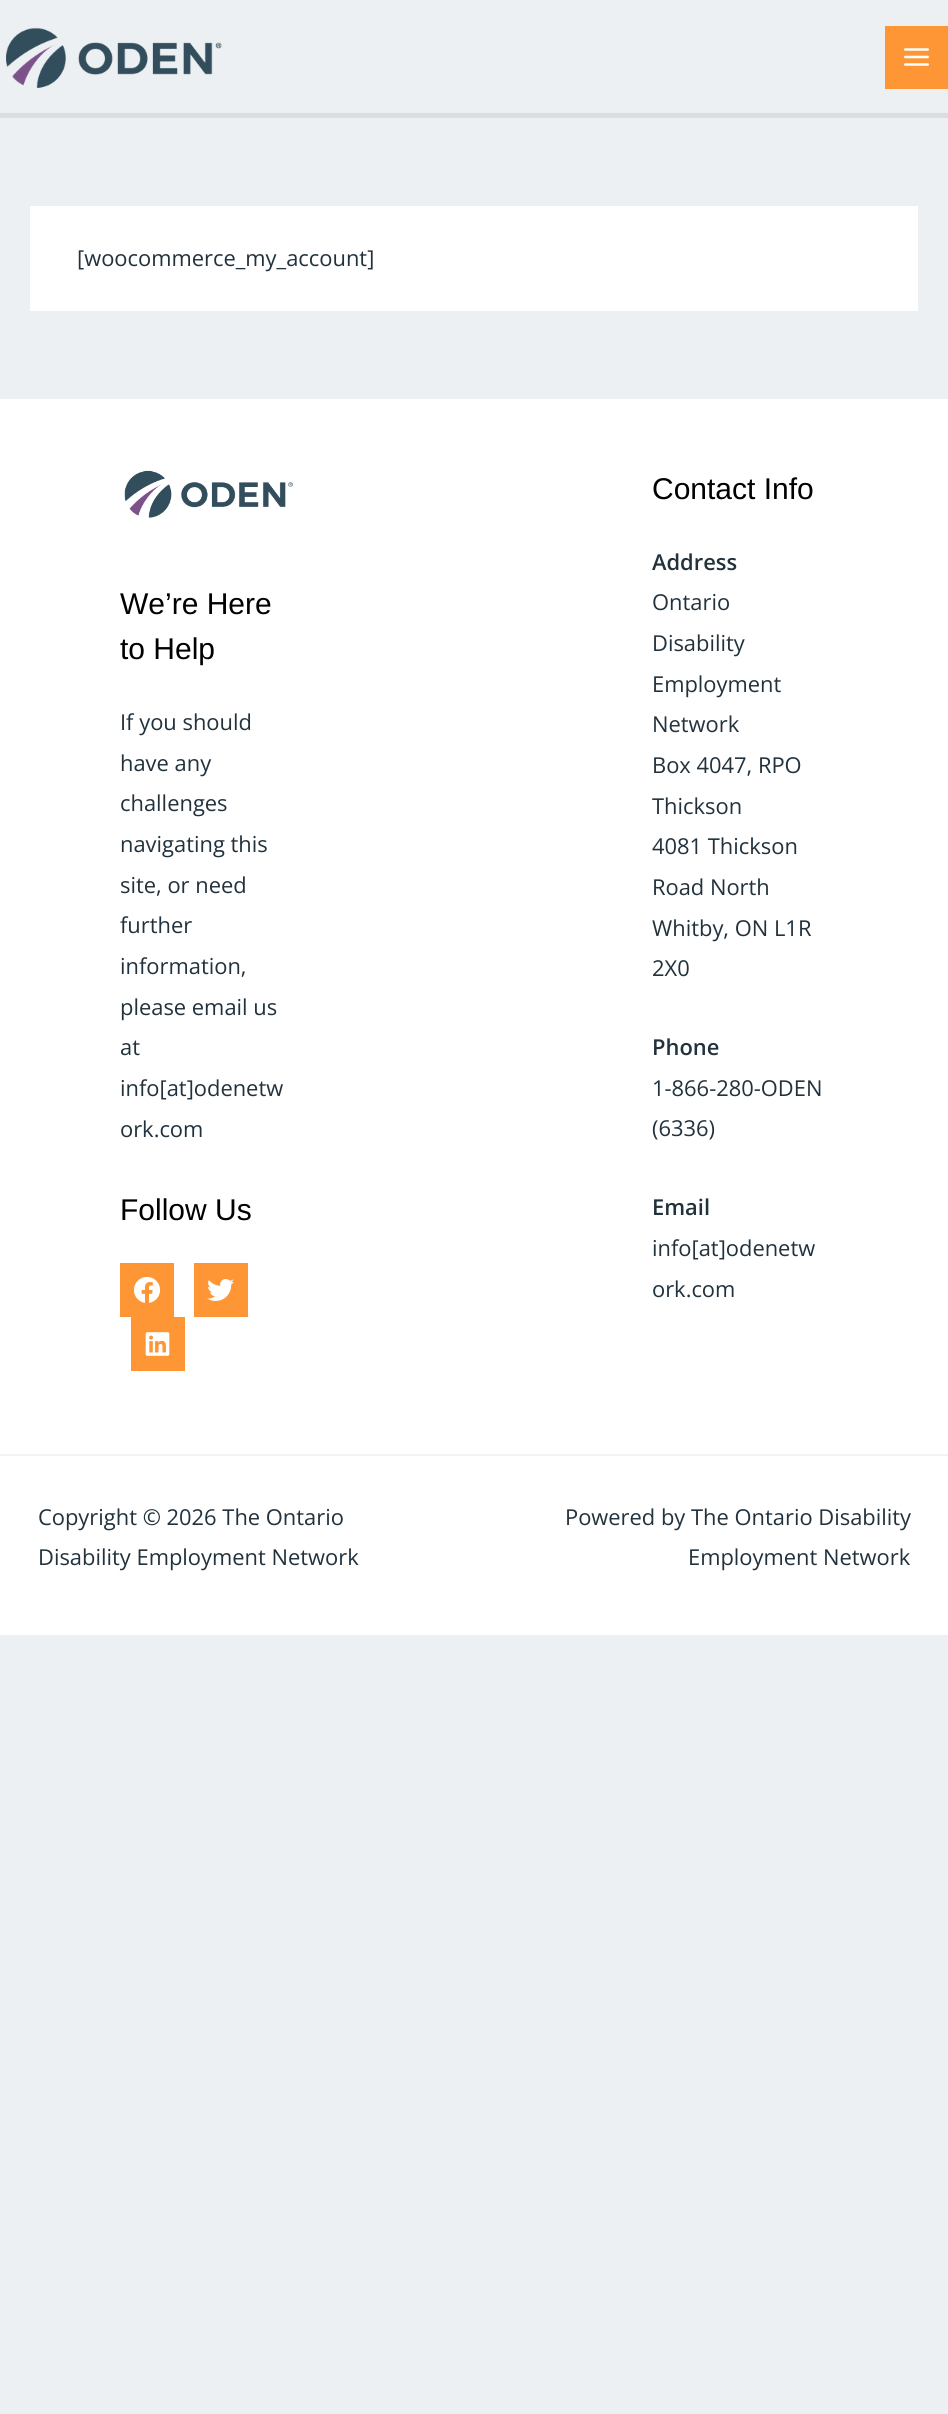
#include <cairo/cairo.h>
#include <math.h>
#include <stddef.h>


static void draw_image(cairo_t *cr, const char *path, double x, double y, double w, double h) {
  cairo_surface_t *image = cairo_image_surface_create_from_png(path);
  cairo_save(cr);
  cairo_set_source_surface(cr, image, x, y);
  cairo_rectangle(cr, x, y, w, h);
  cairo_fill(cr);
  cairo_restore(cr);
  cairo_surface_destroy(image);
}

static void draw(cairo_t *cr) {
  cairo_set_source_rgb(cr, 236 / 255.0, 240 / 255.0, 242 / 255.0);
  cairo_paint(cr);
  cairo_set_source_rgb(cr, 221 / 255.0, 221 / 255.0, 221 / 255.0);
  cairo_rectangle(cr, 0, 113, 948, 5);
  cairo_fill(cr);
  draw_image(cr, "images/1.png", 6, 27, 216, 61);
  cairo_set_source_rgb(cr, 1, 150 / 255.0, 53 / 255.0);
  cairo_rectangle(cr, 885, 26, 63, 63);
  cairo_fill(cr);
  draw_image(cr, "images/2.png", 904, 48, 25, 18);
  cairo_set_source_rgb(cr, 1, 1, 1);
  cairo_rectangle(cr, 30, 206, 888, 105);
  cairo_fill(cr);
  cairo_rectangle(cr, 0, 399, 948, 1055);
  cairo_fill(cr);
  draw_image(cr, "images/3.png", 124, 470, 169, 48);
  cairo_set_source_rgb(cr, 1, 150 / 255.0, 53 / 255.0);
  cairo_rectangle(cr, 120, 1263, 54, 54);
  cairo_fill(cr);
  draw_image(cr, "images/4.png", 134, 1277, 27, 26);
  cairo_rectangle(cr, 194, 1263, 54, 54);
  cairo_fill(cr);
  draw_image(cr, "images/5.png", 207, 1279, 27, 22);
  cairo_rectangle(cr, 131, 1317, 54, 54);
  cairo_fill(cr);
  draw_image(cr, "images/6.png", 145, 1332, 25, 24);
  cairo_set_source_rgb(cr, 1, 1, 1);
  cairo_rectangle(cr, 0, 1456, 948, 179);
  cairo_fill(cr);
  cairo_set_source_rgb(cr, 243 / 255.0, 243 / 255.0, 243 / 255.0);
  cairo_rectangle(cr, 0, 1454, 948, 2);
  cairo_fill(cr);
  cairo_select_font_face(cr, "Open Sans", CAIRO_FONT_SLANT_NORMAL, CAIRO_FONT_WEIGHT_NORMAL);
  cairo_set_font_size(cr, 21.9);
  cairo_set_source_rgb(cr, 34 / 255.0, 50 / 255.0, 61 / 255.0);
  cairo_move_to(cr, 77, 266);
  cairo_show_text(cr, "[woocommerce_my_account]");
  cairo_select_font_face(cr, "Liberation Sans", CAIRO_FONT_SLANT_NORMAL, CAIRO_FONT_WEIGHT_NORMAL);
  cairo_set_font_size(cr, 30);
  cairo_set_source_rgb(cr, 0, 0, 0);
  cairo_move_to(cr, 120, 614);
  cairo_show_text(cr, "We’re Here");
  cairo_move_to(cr, 120, 659);
  cairo_show_text(cr, "to Help");
  cairo_select_font_face(cr, "Open Sans", CAIRO_FONT_SLANT_NORMAL, CAIRO_FONT_WEIGHT_NORMAL);
  cairo_set_font_size(cr, 21.9);
  cairo_set_source_rgb(cr, 34 / 255.0, 50 / 255.0, 61 / 255.0);
  cairo_move_to(cr, 120, 730);
  cairo_show_text(cr, "If you should");
  cairo_move_to(cr, 120, 771);
  cairo_show_text(cr, "have any");
  cairo_move_to(cr, 120, 811);
  cairo_show_text(cr, "challenges");
  cairo_move_to(cr, 120, 852);
  cairo_show_text(cr, "navigating this");
  cairo_move_to(cr, 120, 893);
  cairo_show_text(cr, "site, or need");
  cairo_move_to(cr, 120, 933);
  cairo_show_text(cr, "further");
  cairo_move_to(cr, 120, 974);
  cairo_show_text(cr, "information,");
  cairo_move_to(cr, 120, 1015);
  cairo_show_text(cr, "please email us");
  cairo_move_to(cr, 120, 1055);
  cairo_show_text(cr, "at");
  cairo_move_to(cr, 120, 1096);
  cairo_show_text(cr, "info[at]odenetw");
  cairo_move_to(cr, 120, 1137);
  cairo_show_text(cr, "ork.com");
  cairo_select_font_face(cr, "Liberation Sans", CAIRO_FONT_SLANT_NORMAL, CAIRO_FONT_WEIGHT_NORMAL);
  cairo_set_font_size(cr, 30);
  cairo_set_source_rgb(cr, 0, 0, 0);
  cairo_move_to(cr, 120, 1220);
  cairo_show_text(cr, "Follow Us");
  cairo_move_to(cr, 652, 499);
  cairo_show_text(cr, "Contact Info");
  cairo_select_font_face(cr, "Open Sans SemiBold", CAIRO_FONT_SLANT_NORMAL, CAIRO_FONT_WEIGHT_NORMAL);
  cairo_set_font_size(cr, 21.9);
  cairo_set_source_rgb(cr, 34 / 255.0, 50 / 255.0, 61 / 255.0);
  cairo_move_to(cr, 652, 570);
  cairo_show_text(cr, "Address");
  cairo_select_font_face(cr, "Open Sans", CAIRO_FONT_SLANT_NORMAL, CAIRO_FONT_WEIGHT_NORMAL);
  cairo_move_to(cr, 652, 610);
  cairo_show_text(cr, "Ontario");
  cairo_move_to(cr, 652, 651);
  cairo_show_text(cr, "Disability");
  cairo_move_to(cr, 652, 692);
  cairo_show_text(cr, "Employment");
  cairo_move_to(cr, 652, 732);
  cairo_show_text(cr, "Network");
  cairo_move_to(cr, 652, 773);
  cairo_show_text(cr, "Box 4047, RPO");
  cairo_move_to(cr, 652, 814);
  cairo_show_text(cr, "Thickson");
  cairo_move_to(cr, 652, 854);
  cairo_show_text(cr, "4081 Thickson");
  cairo_move_to(cr, 652, 895);
  cairo_show_text(cr, "Road North");
  cairo_move_to(cr, 652, 936);
  cairo_show_text(cr, "Whitby, ON L1R");
  cairo_move_to(cr, 652, 976);
  cairo_show_text(cr, "2X0");
  cairo_select_font_face(cr, "Open Sans SemiBold", CAIRO_FONT_SLANT_NORMAL, CAIRO_FONT_WEIGHT_NORMAL);
  cairo_move_to(cr, 652, 1055);
  cairo_show_text(cr, "Phone");
  cairo_select_font_face(cr, "Open Sans", CAIRO_FONT_SLANT_NORMAL, CAIRO_FONT_WEIGHT_NORMAL);
  cairo_move_to(cr, 652, 1096);
  cairo_show_text(cr, "1-866-280-ODEN");
  cairo_move_to(cr, 652, 1136);
  cairo_show_text(cr, "(6336)");
  cairo_select_font_face(cr, "Open Sans SemiBold", CAIRO_FONT_SLANT_NORMAL, CAIRO_FONT_WEIGHT_NORMAL);
  cairo_move_to(cr, 652, 1215);
  cairo_show_text(cr, "Email");
  cairo_select_font_face(cr, "Open Sans", CAIRO_FONT_SLANT_NORMAL, CAIRO_FONT_WEIGHT_NORMAL);
  cairo_move_to(cr, 652, 1256);
  cairo_show_text(cr, "info[at]odenetw");
  cairo_move_to(cr, 652, 1297);
  cairo_show_text(cr, "ork.com");
  cairo_move_to(cr, 38, 1525);
  cairo_show_text(cr, "Copyright © 2026 The Ontario");
  cairo_move_to(cr, 38, 1565);
  cairo_show_text(cr, "Disability Employment Network");
  cairo_move_to(cr, 565, 1525);
  cairo_show_text(cr, "Powered by The Ontario Disability");
  cairo_move_to(cr, 688, 1565);
  cairo_show_text(cr, "Employment Network");
}

int main(void) {
  cairo_surface_t *surface = cairo_image_surface_create(CAIRO_FORMAT_RGB24, 948, 2414);
  cairo_t *cr = cairo_create(surface);
  cairo_font_options_t *options = cairo_font_options_create();
  cairo_font_options_set_hint_metrics(options, CAIRO_HINT_METRICS_OFF);
  cairo_font_options_set_hint_style(options, CAIRO_HINT_STYLE_NONE);
  cairo_set_font_options(cr, options);
  cairo_set_miter_limit(cr, 4);
  draw(cr);
  cairo_surface_write_to_png(surface, "out.png");
  cairo_font_options_destroy(options);
  cairo_destroy(cr);
  cairo_surface_destroy(surface);
  return 0;
}
